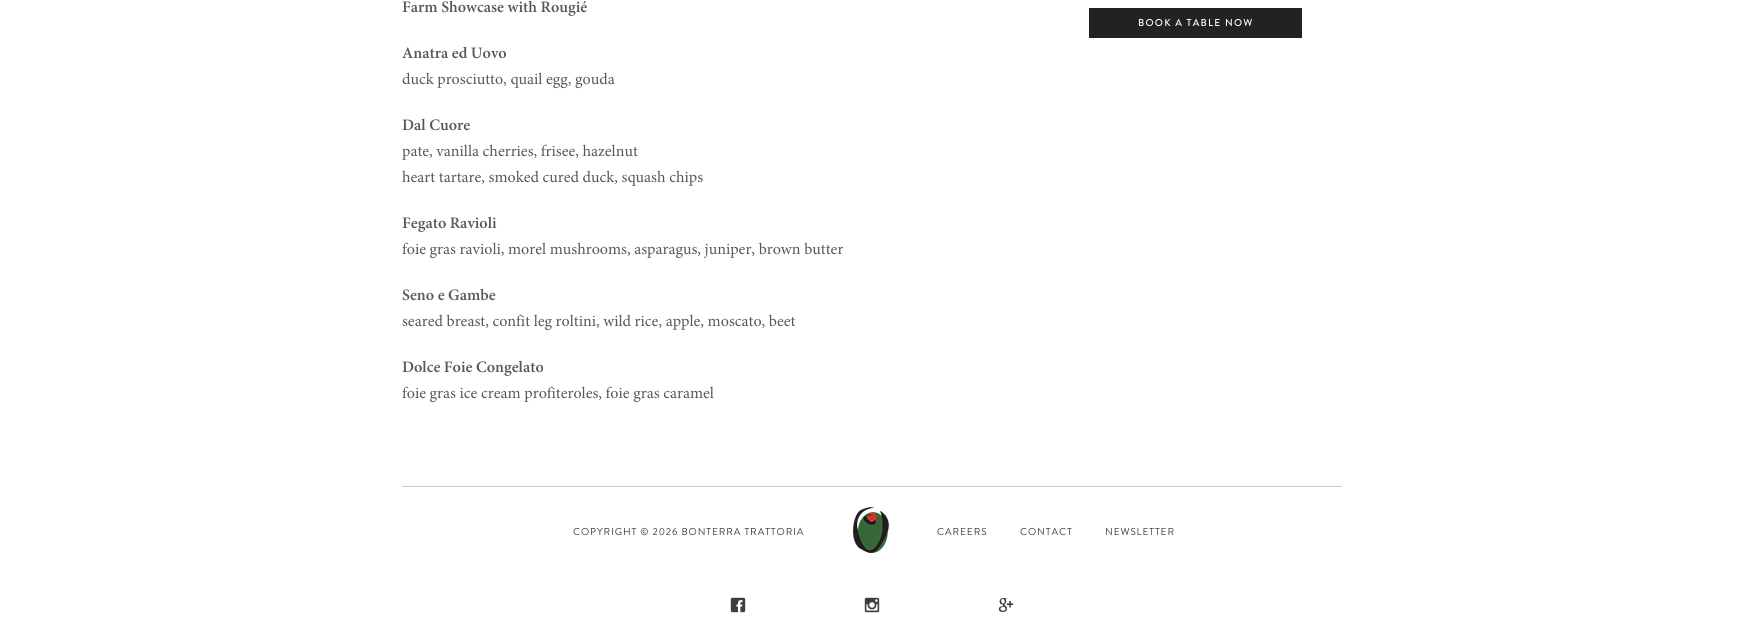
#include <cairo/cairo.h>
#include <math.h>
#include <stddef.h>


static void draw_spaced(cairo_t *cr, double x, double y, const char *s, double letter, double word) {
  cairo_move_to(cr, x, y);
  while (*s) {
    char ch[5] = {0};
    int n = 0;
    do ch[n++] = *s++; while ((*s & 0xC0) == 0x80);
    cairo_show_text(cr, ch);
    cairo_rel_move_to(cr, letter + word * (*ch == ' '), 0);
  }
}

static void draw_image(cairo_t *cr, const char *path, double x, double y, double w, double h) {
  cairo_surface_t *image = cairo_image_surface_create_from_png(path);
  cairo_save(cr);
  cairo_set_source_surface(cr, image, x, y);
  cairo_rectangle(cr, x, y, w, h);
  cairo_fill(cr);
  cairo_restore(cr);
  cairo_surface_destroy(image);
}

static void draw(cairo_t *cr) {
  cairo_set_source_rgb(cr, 1, 1, 1);
  cairo_paint(cr);
  cairo_set_source_rgb(cr, 34 / 255.0, 34 / 255.0, 34 / 255.0);
  cairo_rectangle(cr, 1089, 8, 213, 30);
  cairo_fill(cr);
  cairo_set_source_rgb(cr, 207 / 255.0, 204 / 255.0, 180 / 255.0);
  cairo_rectangle(cr, 402, 486, 940, 1);
  cairo_fill(cr);
  draw_image(cr, "images/1.png", 853, 507, 36, 46);
  draw_image(cr, "images/2.png", 730, 597, 16, 16);
  draw_image(cr, "images/3.png", 864, 597, 16, 16);
  draw_image(cr, "images/4.png", 998, 598, 16, 14);
  cairo_select_font_face(cr, "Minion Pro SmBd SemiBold", CAIRO_FONT_SLANT_NORMAL, CAIRO_FONT_WEIGHT_NORMAL);
  cairo_set_font_size(cr, 16);
  cairo_set_source_rgb(cr, 88 / 255.0, 88 / 255.0, 88 / 255.0);
  cairo_move_to(cr, 402, 12);
  cairo_show_text(cr, "Farm Showcase with Rougié");
  cairo_move_to(cr, 402, 58);
  cairo_show_text(cr, "Anatra ed Uovo");
  cairo_select_font_face(cr, "Minion", CAIRO_FONT_SLANT_NORMAL, CAIRO_FONT_WEIGHT_NORMAL);
  cairo_move_to(cr, 402, 84);
  cairo_show_text(cr, "duck prosciutto, quail egg, gouda");
  cairo_select_font_face(cr, "Minion Pro SmBd SemiBold", CAIRO_FONT_SLANT_NORMAL, CAIRO_FONT_WEIGHT_NORMAL);
  cairo_move_to(cr, 402, 130);
  cairo_show_text(cr, "Dal Cuore");
  cairo_select_font_face(cr, "Minion", CAIRO_FONT_SLANT_NORMAL, CAIRO_FONT_WEIGHT_NORMAL);
  cairo_move_to(cr, 402, 156);
  cairo_show_text(cr, "pate, vanilla cherries, frisee, hazelnut");
  cairo_move_to(cr, 402, 182);
  cairo_show_text(cr, "heart tartare, smoked cured duck, squash chips");
  cairo_select_font_face(cr, "Minion Pro SmBd SemiBold", CAIRO_FONT_SLANT_NORMAL, CAIRO_FONT_WEIGHT_NORMAL);
  cairo_move_to(cr, 402, 228);
  cairo_show_text(cr, "Fegato Ravioli");
  cairo_select_font_face(cr, "Minion", CAIRO_FONT_SLANT_NORMAL, CAIRO_FONT_WEIGHT_NORMAL);
  cairo_move_to(cr, 402, 254);
  cairo_show_text(cr, "foie gras ravioli, morel mushrooms, asparagus, juniper, brown butter");
  cairo_select_font_face(cr, "Minion Pro SmBd SemiBold", CAIRO_FONT_SLANT_NORMAL, CAIRO_FONT_WEIGHT_NORMAL);
  cairo_move_to(cr, 402, 300);
  cairo_show_text(cr, "Seno e Gambe");
  cairo_select_font_face(cr, "Minion", CAIRO_FONT_SLANT_NORMAL, CAIRO_FONT_WEIGHT_NORMAL);
  cairo_move_to(cr, 402, 326);
  cairo_show_text(cr, "seared breast, confit leg roltini, wild rice, apple, moscato, beet");
  cairo_select_font_face(cr, "Minion Pro SmBd SemiBold", CAIRO_FONT_SLANT_NORMAL, CAIRO_FONT_WEIGHT_NORMAL);
  cairo_move_to(cr, 402, 372);
  cairo_show_text(cr, "Dolce Foie Congelato");
  cairo_select_font_face(cr, "Minion", CAIRO_FONT_SLANT_NORMAL, CAIRO_FONT_WEIGHT_NORMAL);
  cairo_move_to(cr, 402, 398);
  cairo_show_text(cr, "foie gras ice cream profiteroles, foie gras caramel");
  cairo_select_font_face(cr, "Brandon Grotesque Medium", CAIRO_FONT_SLANT_NORMAL, CAIRO_FONT_WEIGHT_NORMAL);
  cairo_set_font_size(cr, 10);
  cairo_set_source_rgb(cr, 1, 1, 1);
  draw_spaced(cr, 1138, 26, "BOOK A TABLE NOW", 1.25, 0);
  cairo_select_font_face(cr, "Brandon Grotesque", CAIRO_FONT_SLANT_NORMAL, CAIRO_FONT_WEIGHT_NORMAL);
  cairo_set_source_rgb(cr, 62 / 255.0, 62 / 255.0, 62 / 255.0);
  draw_spaced(cr, 573, 535, "COPYRIGHT © 2026 BONTERRA TRATTORIA", 0.9, 0);
  draw_spaced(cr, 937, 535, "CAREERS", 0.9, 0);
  draw_spaced(cr, 1020, 535, "CONTACT", 0.9, 0);
  draw_spaced(cr, 1105, 535, "NEWSLETTER", 0.9, 0);
}

int main(void) {
  cairo_surface_t *surface = cairo_image_surface_create(CAIRO_FORMAT_RGB24, 1744, 636);
  cairo_t *cr = cairo_create(surface);
  cairo_font_options_t *options = cairo_font_options_create();
  cairo_font_options_set_hint_metrics(options, CAIRO_HINT_METRICS_OFF);
  cairo_font_options_set_hint_style(options, CAIRO_HINT_STYLE_NONE);
  cairo_set_font_options(cr, options);
  cairo_set_miter_limit(cr, 4);
  draw(cr);
  cairo_surface_write_to_png(surface, "out.png");
  cairo_font_options_destroy(options);
  cairo_destroy(cr);
  cairo_surface_destroy(surface);
  return 0;
}
